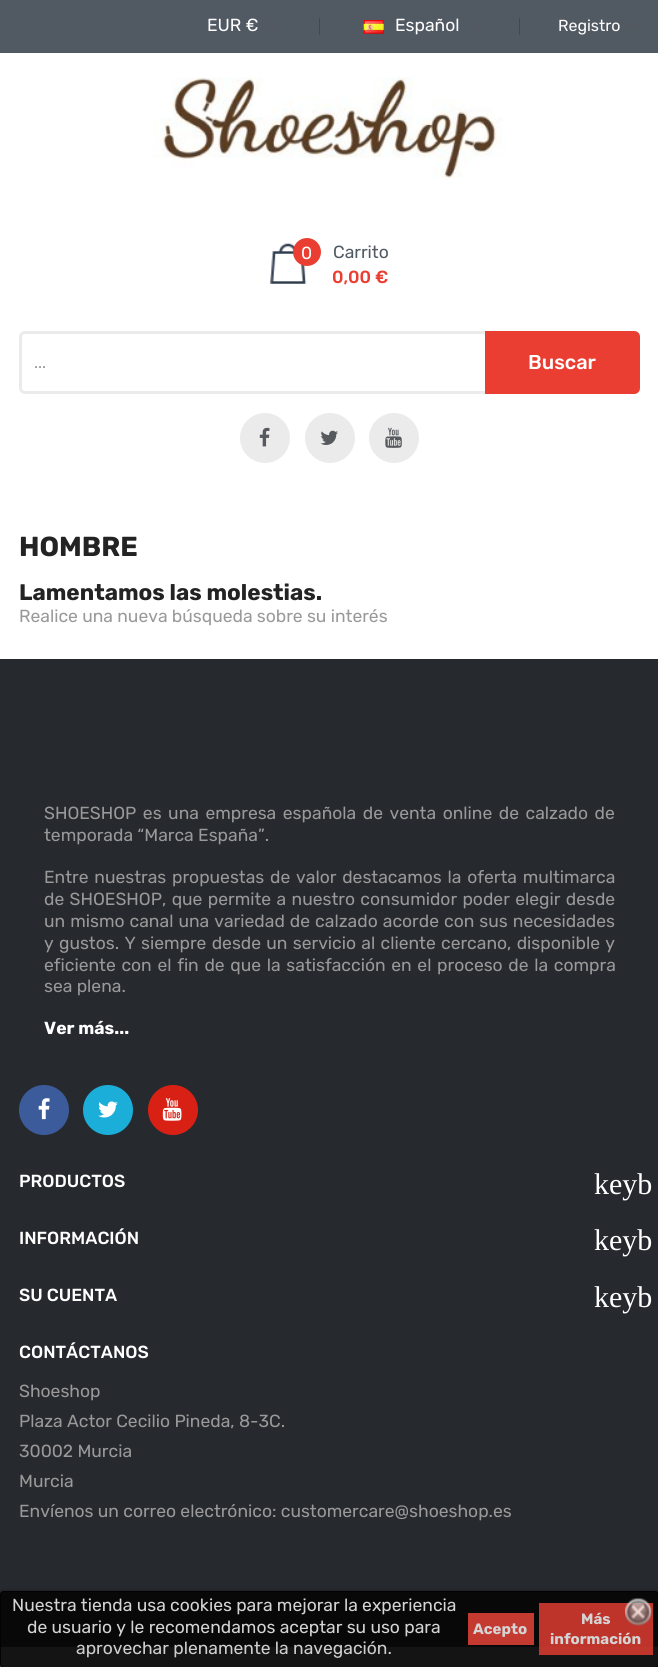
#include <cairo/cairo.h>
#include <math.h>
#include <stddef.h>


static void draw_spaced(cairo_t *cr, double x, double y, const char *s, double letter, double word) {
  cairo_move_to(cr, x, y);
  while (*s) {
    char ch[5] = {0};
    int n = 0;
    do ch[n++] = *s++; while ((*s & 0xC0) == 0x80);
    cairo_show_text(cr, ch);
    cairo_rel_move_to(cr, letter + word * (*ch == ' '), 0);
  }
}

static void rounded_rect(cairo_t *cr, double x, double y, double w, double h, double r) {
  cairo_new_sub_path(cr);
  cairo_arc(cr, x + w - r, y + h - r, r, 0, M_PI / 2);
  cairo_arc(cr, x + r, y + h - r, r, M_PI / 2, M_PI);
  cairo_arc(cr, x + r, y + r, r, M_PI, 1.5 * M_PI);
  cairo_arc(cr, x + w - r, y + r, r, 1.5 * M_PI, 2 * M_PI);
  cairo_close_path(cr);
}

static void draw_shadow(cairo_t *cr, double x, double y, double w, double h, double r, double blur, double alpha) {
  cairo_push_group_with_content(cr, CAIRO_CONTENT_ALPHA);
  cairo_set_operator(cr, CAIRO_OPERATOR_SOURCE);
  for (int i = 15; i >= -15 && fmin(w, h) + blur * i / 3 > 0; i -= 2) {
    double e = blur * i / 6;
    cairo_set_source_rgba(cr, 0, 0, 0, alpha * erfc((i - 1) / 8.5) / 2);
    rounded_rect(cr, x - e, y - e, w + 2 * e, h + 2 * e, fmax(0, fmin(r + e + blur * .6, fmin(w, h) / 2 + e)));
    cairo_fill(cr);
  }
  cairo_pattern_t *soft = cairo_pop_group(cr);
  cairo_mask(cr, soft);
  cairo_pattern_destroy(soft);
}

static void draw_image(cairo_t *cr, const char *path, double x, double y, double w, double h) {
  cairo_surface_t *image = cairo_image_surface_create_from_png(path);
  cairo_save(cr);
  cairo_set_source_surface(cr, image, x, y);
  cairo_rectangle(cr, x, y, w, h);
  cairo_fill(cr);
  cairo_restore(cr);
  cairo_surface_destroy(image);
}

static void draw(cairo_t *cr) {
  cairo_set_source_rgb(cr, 1, 1, 1);
  cairo_paint(cr);
  cairo_set_source_rgb(cr, 81 / 255.0, 89 / 255.0, 99 / 255.0);
  cairo_rectangle(cr, 0, 0, 658, 53);
  cairo_fill(cr);
  draw_image(cr, "images/1.png", 270, 24, 10, 5);
  cairo_set_source_rgb(cr, 67 / 255.0, 71 / 255.0, 78 / 255.0);
  cairo_rectangle(cr, 519, 18, 1, 17);
  cairo_fill(cr);
  cairo_rectangle(cr, 319, 18, 1, 17);
  cairo_fill(cr);
  draw_image(cr, "images/2.png", 363, 20, 21, 14);
  draw_image(cr, "images/3.png", 472, 24, 10, 5);
  draw_image(cr, "images/4.png", 629, 24, 10, 5);
  draw_image(cr, "images/5.png", 153, 77, 353, 101);
  draw_image(cr, "images/6.png", 270, 243, 37, 41);
  cairo_set_source_rgb(cr, 235 / 255.0, 62 / 255.0, 50 / 255.0);
  cairo_arc(cr, 307, 252, 14, 0, 2 * M_PI);
  cairo_fill(cr);
  rounded_rect(cr, 20.5, 332.5, 618, 60, 4.5);
  cairo_set_source_rgb(cr, 235 / 255.0, 235 / 255.0, 235 / 255.0);
  cairo_set_line_width(cr, 3);
  cairo_stroke(cr);
  cairo_set_source_rgb(cr, 235 / 255.0, 62 / 255.0, 50 / 255.0);
  cairo_new_path(cr);
  cairo_move_to(cr, 485, 331);
  cairo_line_to(cr, 634, 331);
  cairo_curve_to(cr, 637.5, 331, 640, 333.5, 640, 337);
  cairo_line_to(cr, 640, 388);
  cairo_curve_to(cr, 640, 391.5, 637.5, 394, 634, 394);
  cairo_line_to(cr, 485, 394);
  cairo_close_path(cr);
  cairo_fill(cr);
  cairo_set_source_rgb(cr, 235 / 255.0, 235 / 255.0, 235 / 255.0);
  cairo_arc(cr, 265, 438, 25, 0, 2 * M_PI);
  cairo_fill(cr);
  draw_image(cr, "images/7.png", 259, 427, 11, 20);
  cairo_arc(cr, 330, 438, 25, 0, 2 * M_PI);
  cairo_fill(cr);
  draw_image(cr, "images/8.png", 320, 430, 18, 15);
  cairo_arc(cr, 394, 438, 25, 0, 2 * M_PI);
  cairo_fill(cr);
  draw_image(cr, "images/9.png", 385, 427, 17, 21);
  cairo_set_source_rgb(cr, 38 / 255.0, 41 / 255.0, 46 / 255.0);
  cairo_rectangle(cr, 0, 659, 658, 987);
  cairo_fill(cr);
  cairo_set_source_rgb(cr, 102 / 255.0, 102 / 255.0, 102 / 255.0);
  cairo_rectangle(cr, 0, 1647, 658, 20);
  cairo_fill(cr);
  cairo_set_source_rgb(cr, 48 / 255.0, 51 / 255.0, 56 / 255.0);
  cairo_rectangle(cr, 0, 1646, 658, 1);
  cairo_fill(cr);
  cairo_save(cr);
  cairo_set_fill_rule(cr, CAIRO_FILL_RULE_EVEN_ODD);
  cairo_new_path(cr);
  cairo_move_to(cr, 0, 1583);
  cairo_line_to(cr, 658, 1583);
  cairo_line_to(cr, 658, 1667);
  cairo_line_to(cr, 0, 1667);
  cairo_close_path(cr);
  cairo_move_to(cr, 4, 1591);
  cairo_line_to(cr, 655, 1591);
  cairo_curve_to(cr, 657, 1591, 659, 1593, 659, 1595);
  cairo_line_to(cr, 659, 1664);
  cairo_curve_to(cr, 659, 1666, 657, 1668, 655, 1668);
  cairo_line_to(cr, 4, 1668);
  cairo_curve_to(cr, 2, 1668, 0, 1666, 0, 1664);
  cairo_line_to(cr, 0, 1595);
  cairo_curve_to(cr, 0, 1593, 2, 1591, 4, 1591);
  cairo_close_path(cr);
  cairo_clip(cr);
  cairo_set_source_rgb(cr, 0, 0, 0);
  draw_shadow(cr, 0, 1593, 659, 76, 4, 3, 0.8);
  cairo_restore(cr);
  cairo_set_source_rgba(cr, 0, 0, 0, 0.8);
  rounded_rect(cr, 0, 1591, 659, 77, 4);
  cairo_fill(cr);
  rounded_rect(cr, 0.5, 1591.5, 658, 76, 3.5);
  cairo_set_line_width(cr, 1);
  cairo_stroke(cr);
  cairo_set_source_rgb(cr, 196 / 255.0, 58 / 255.0, 49 / 255.0);
  cairo_rectangle(cr, 468, 1613, 66, 32);
  cairo_fill(cr);
  cairo_set_source_rgba(cr, 235 / 255.0, 62 / 255.0, 50 / 255.0, 0.8);
  cairo_rectangle(cr, 539, 1603, 114, 52);
  cairo_fill(cr);
  draw_image(cr, "images/10.png", 625, 1598, 27, 28);
  cairo_set_source_rgb(cr, 60 / 255.0, 91 / 255.0, 155 / 255.0);
  cairo_arc(cr, 44, 1110, 25, 0, 2 * M_PI);
  cairo_fill(cr);
  draw_image(cr, "images/11.png", 38, 1098, 12, 22);
  cairo_set_source_rgb(cr, 26 / 255.0, 174 / 255.0, 217 / 255.0);
  cairo_arc(cr, 108, 1110, 25, 0, 2 * M_PI);
  cairo_fill(cr);
  draw_image(cr, "images/12.png", 98, 1101, 20, 17);
  cairo_set_source_rgb(cr, 216 / 255.0, 33 / 255.0, 20 / 255.0);
  cairo_arc(cr, 173, 1110, 25, 0, 2 * M_PI);
  cairo_fill(cr);
  draw_image(cr, "images/13.png", 162, 1098, 20, 23);
  cairo_select_font_face(cr, "Rubik", CAIRO_FONT_SLANT_NORMAL, CAIRO_FONT_WEIGHT_NORMAL);
  cairo_set_font_size(cr, 17.5);
  cairo_set_source_rgb(cr, 1, 1, 1);
  cairo_move_to(cr, 207, 31);
  cairo_show_text(cr, "EUR €");
  cairo_move_to(cr, 395, 31);
  cairo_show_text(cr, "Español");
  cairo_set_font_size(cr, 16);
  cairo_move_to(cr, 558, 31);
  cairo_show_text(cr, "Registro");
  cairo_set_font_size(cr, 17.5);
  cairo_move_to(cr, 301, 259);
  cairo_show_text(cr, "0");
  cairo_set_source_rgb(cr, 81 / 255.0, 89 / 255.0, 99 / 255.0);
  cairo_move_to(cr, 333, 258);
  cairo_show_text(cr, "Carrito");
  cairo_select_font_face(cr, "Rubik Medium", CAIRO_FONT_SLANT_NORMAL, CAIRO_FONT_WEIGHT_NORMAL);
  cairo_set_source_rgb(cr, 235 / 255.0, 62 / 255.0, 50 / 255.0);
  cairo_move_to(cr, 332, 283);
  cairo_show_text(cr, "0,00 €");
  cairo_select_font_face(cr, "Rubik", CAIRO_FONT_SLANT_NORMAL, CAIRO_FONT_WEIGHT_NORMAL);
  cairo_set_font_size(cr, 16);
  cairo_set_source_rgb(cr, 153 / 255.0, 153 / 255.0, 153 / 255.0);
  cairo_move_to(cr, 34, 368);
  cairo_show_text(cr, "...");
  cairo_select_font_face(cr, "Rubik Medium", CAIRO_FONT_SLANT_NORMAL, CAIRO_FONT_WEIGHT_NORMAL);
  cairo_set_font_size(cr, 20);
  cairo_set_source_rgb(cr, 1, 1, 1);
  cairo_move_to(cr, 528, 369);
  cairo_show_text(cr, "Buscar");
  cairo_select_font_face(cr, "Rubik", CAIRO_FONT_SLANT_NORMAL, CAIRO_FONT_WEIGHT_NORMAL);
  cairo_set_font_size(cr, 17.5);
  cairo_set_source_rgb(cr, 212 / 255.0, 212 / 255.0, 213 / 255.0);
  cairo_move_to(cr, 12, 1611);
  cairo_show_text(cr, "Nuestra tienda usa cookies para mejorar la experiencia");
  cairo_move_to(cr, 27, 1633);
  cairo_show_text(cr, "de usuario y le recomendamos aceptar su uso para");
  cairo_set_source_rgb(cr, 207 / 255.0, 207 / 255.0, 207 / 255.0);
  cairo_move_to(cr, 76, 1654);
  cairo_show_text(cr, "aprovechar plenamente la navegación.");
  cairo_select_font_face(cr, "Rubik", CAIRO_FONT_SLANT_NORMAL, CAIRO_FONT_WEIGHT_BOLD);
  cairo_set_font_size(cr, 15);
  cairo_set_source_rgb(cr, 212 / 255.0, 212 / 255.0, 213 / 255.0);
  cairo_move_to(cr, 473, 1634);
  cairo_show_text(cr, "Acepto");
  cairo_move_to(cr, 581, 1624);
  cairo_show_text(cr, "Más");
  cairo_move_to(cr, 550, 1644);
  cairo_show_text(cr, "información");
  cairo_set_font_size(cr, 27.5);
  cairo_set_source_rgb(cr, 35 / 255.0, 35 / 255.0, 35 / 255.0);
  cairo_move_to(cr, 19, 556);
  cairo_show_text(cr, "HOMBRE");
  cairo_set_font_size(cr, 22.5);
  cairo_move_to(cr, 19, 600);
  cairo_show_text(cr, "Lamentamos las molestias.");
  cairo_select_font_face(cr, "Rubik", CAIRO_FONT_SLANT_NORMAL, CAIRO_FONT_WEIGHT_NORMAL);
  cairo_set_font_size(cr, 17.5);
  cairo_set_source_rgb(cr, 153 / 255.0, 153 / 255.0, 153 / 255.0);
  cairo_move_to(cr, 19, 622);
  cairo_show_text(cr, "Realice una nueva búsqueda sobre su interés");
  draw_spaced(cr, 44, 819, "SHOESHOP es una empresa española de venta online de calzado de", 0, 2.25);
  cairo_move_to(cr, 44, 841);
  cairo_show_text(cr, "temporada “Marca España”.");
  draw_spaced(cr, 44, 883, "Entre nuestras propuestas de valor destacamos la oferta multimarca", 0, 1.5);
  draw_spaced(cr, 44, 905, "de SHOESHOP, que permite a nuestro consumidor poder elegir desde", 0, 1.1);
  draw_spaced(cr, 44, 927, "un mismo canal una variedad de calzado acorde con sus necesidades", 0, 0.75);
  draw_spaced(cr, 44, 949, "y gustos. Y siempre desde un servicio al cliente cercano, disponible y", 0, 1);
  draw_spaced(cr, 44, 971, "eficiente con el fin de que la satisfacción en el proceso de la compra", 0, 1.4);
  cairo_move_to(cr, 44, 992);
  cairo_show_text(cr, "sea plena.");
  cairo_select_font_face(cr, "Rubik", CAIRO_FONT_SLANT_NORMAL, CAIRO_FONT_WEIGHT_BOLD);
  cairo_set_source_rgb(cr, 1, 1, 1);
  cairo_move_to(cr, 44, 1034);
  cairo_show_text(cr, "Ver más...");
  cairo_select_font_face(cr, "Rubik Medium", CAIRO_FONT_SLANT_NORMAL, CAIRO_FONT_WEIGHT_NORMAL);
  cairo_move_to(cr, 19, 1187);
  cairo_show_text(cr, "PRODUCTOS");
  cairo_select_font_face(cr, "Liberation Serif", CAIRO_FONT_SLANT_NORMAL, CAIRO_FONT_WEIGHT_NORMAL);
  cairo_set_font_size(cr, 30);
  cairo_move_to(cr, 594, 1194);
  cairo_show_text(cr, "keyb");
  cairo_select_font_face(cr, "Rubik Medium", CAIRO_FONT_SLANT_NORMAL, CAIRO_FONT_WEIGHT_NORMAL);
  cairo_set_font_size(cr, 17.5);
  cairo_move_to(cr, 19, 1244);
  cairo_show_text(cr, "INFORMACIÓN");
  cairo_select_font_face(cr, "Liberation Serif", CAIRO_FONT_SLANT_NORMAL, CAIRO_FONT_WEIGHT_NORMAL);
  cairo_set_font_size(cr, 30);
  cairo_move_to(cr, 594, 1250);
  cairo_show_text(cr, "keyb");
  cairo_select_font_face(cr, "Rubik Medium", CAIRO_FONT_SLANT_NORMAL, CAIRO_FONT_WEIGHT_NORMAL);
  cairo_set_font_size(cr, 17.5);
  cairo_move_to(cr, 19, 1301);
  cairo_show_text(cr, "SU CUENTA");
  cairo_select_font_face(cr, "Liberation Serif", CAIRO_FONT_SLANT_NORMAL, CAIRO_FONT_WEIGHT_NORMAL);
  cairo_set_font_size(cr, 30);
  cairo_move_to(cr, 594, 1307);
  cairo_show_text(cr, "keyb");
  cairo_select_font_face(cr, "Rubik Medium", CAIRO_FONT_SLANT_NORMAL, CAIRO_FONT_WEIGHT_NORMAL);
  cairo_set_font_size(cr, 17.5);
  cairo_move_to(cr, 19, 1358);
  cairo_show_text(cr, "CONTÁCTANOS");
  cairo_select_font_face(cr, "Rubik", CAIRO_FONT_SLANT_NORMAL, CAIRO_FONT_WEIGHT_NORMAL);
  cairo_set_source_rgb(cr, 153 / 255.0, 153 / 255.0, 153 / 255.0);
  cairo_move_to(cr, 19, 1397);
  cairo_show_text(cr, "Shoeshop");
  cairo_move_to(cr, 19, 1427);
  cairo_show_text(cr, "Plaza Actor Cecilio Pineda, 8-3C.");
  cairo_move_to(cr, 19, 1457);
  cairo_show_text(cr, "30002 Murcia");
  cairo_move_to(cr, 19, 1487);
  cairo_show_text(cr, "Murcia");
  cairo_move_to(cr, 19, 1517);
  cairo_show_text(cr, "Envíenos un correo electrónico: customercare@shoeshop.es");
}

int main(void) {
  cairo_surface_t *surface = cairo_image_surface_create(CAIRO_FORMAT_RGB24, 658, 1667);
  cairo_t *cr = cairo_create(surface);
  cairo_font_options_t *options = cairo_font_options_create();
  cairo_font_options_set_hint_metrics(options, CAIRO_HINT_METRICS_OFF);
  cairo_font_options_set_hint_style(options, CAIRO_HINT_STYLE_NONE);
  cairo_set_font_options(cr, options);
  cairo_set_miter_limit(cr, 4);
  draw(cr);
  cairo_surface_write_to_png(surface, "out.png");
  cairo_font_options_destroy(options);
  cairo_destroy(cr);
  cairo_surface_destroy(surface);
  return 0;
}
